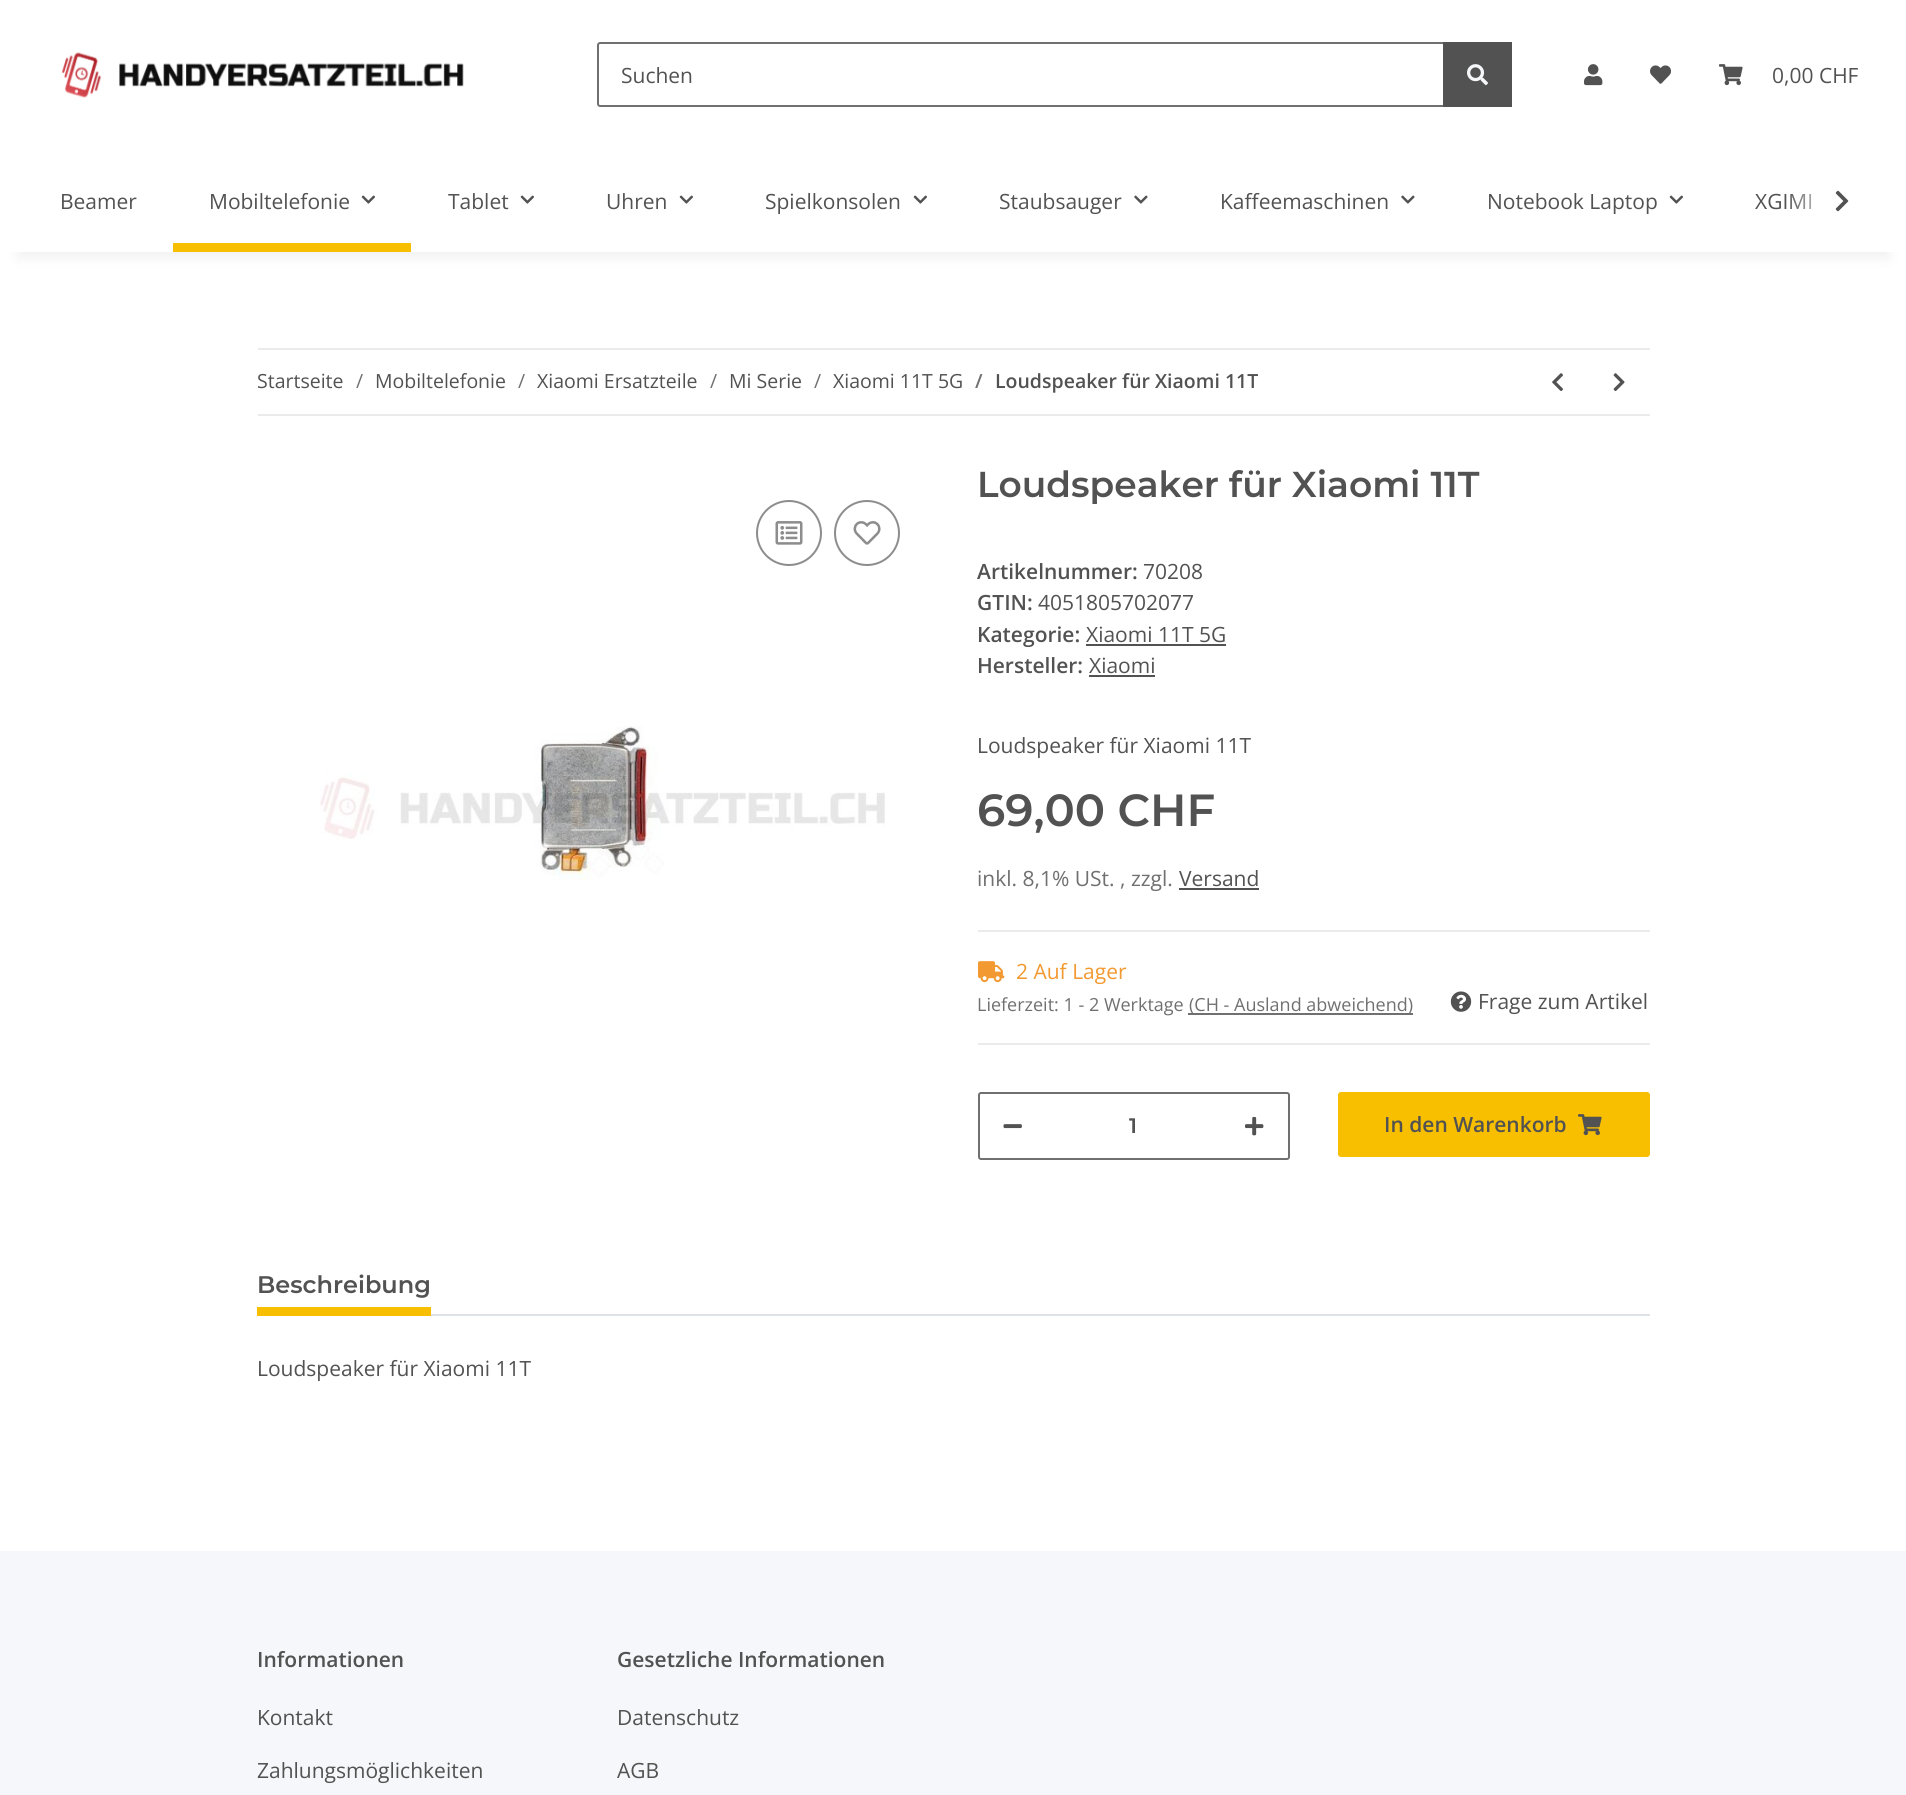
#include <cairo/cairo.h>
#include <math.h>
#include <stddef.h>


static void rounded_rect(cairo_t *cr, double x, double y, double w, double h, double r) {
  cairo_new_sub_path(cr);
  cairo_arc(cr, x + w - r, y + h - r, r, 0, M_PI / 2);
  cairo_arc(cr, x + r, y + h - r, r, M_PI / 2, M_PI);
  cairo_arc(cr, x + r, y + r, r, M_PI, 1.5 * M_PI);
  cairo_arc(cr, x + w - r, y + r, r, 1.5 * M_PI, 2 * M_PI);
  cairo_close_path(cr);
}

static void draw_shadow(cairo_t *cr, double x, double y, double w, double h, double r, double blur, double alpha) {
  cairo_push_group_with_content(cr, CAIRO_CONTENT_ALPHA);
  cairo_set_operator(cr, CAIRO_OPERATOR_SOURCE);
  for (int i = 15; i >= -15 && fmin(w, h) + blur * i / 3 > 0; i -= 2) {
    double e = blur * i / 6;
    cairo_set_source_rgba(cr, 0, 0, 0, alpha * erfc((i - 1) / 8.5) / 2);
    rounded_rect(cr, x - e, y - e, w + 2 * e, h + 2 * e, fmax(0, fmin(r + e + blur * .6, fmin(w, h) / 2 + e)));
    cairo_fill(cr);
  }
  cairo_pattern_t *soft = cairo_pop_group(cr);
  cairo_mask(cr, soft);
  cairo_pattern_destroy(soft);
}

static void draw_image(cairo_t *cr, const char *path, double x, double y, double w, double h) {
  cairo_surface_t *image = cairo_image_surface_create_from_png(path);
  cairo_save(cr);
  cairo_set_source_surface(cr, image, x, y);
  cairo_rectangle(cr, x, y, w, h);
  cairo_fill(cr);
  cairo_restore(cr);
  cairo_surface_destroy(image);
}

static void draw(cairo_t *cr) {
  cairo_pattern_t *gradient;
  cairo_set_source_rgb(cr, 245 / 255.0, 247 / 255.0, 250 / 255.0);
  cairo_paint(cr);
  cairo_set_source_rgb(cr, 1, 1, 1);
  cairo_rectangle(cr, 0, 252, 1906, 1299);
  cairo_fill(cr);
  cairo_set_source_rgb(cr, 0, 0, 0);
  draw_shadow(cr, 18, 42, 1871, 216, 0, 7, 0.06);
  cairo_set_source_rgb(cr, 1, 1, 1);
  cairo_rectangle(cr, 0, 0, 1906, 252);
  cairo_fill(cr);
  draw_image(cr, "images/1.png", 62, 52, 402, 46);
  cairo_new_path(cr);
  cairo_move_to(cr, 600, 43);
  cairo_line_to(cr, 1444, 43);
  cairo_line_to(cr, 1444, 106);
  cairo_line_to(cr, 600, 106);
  cairo_curve_to(cr, 599, 106, 598, 105, 598, 104);
  cairo_line_to(cr, 598, 45);
  cairo_curve_to(cr, 598, 44, 599, 43, 600, 43);
  cairo_close_path(cr);
  cairo_set_source_rgb(cr, 112 / 255.0, 112 / 255.0, 112 / 255.0);
  cairo_stroke(cr);
  cairo_set_source_rgb(cr, 82 / 255.0, 82 / 255.0, 82 / 255.0);
  cairo_rectangle(cr, 1443, 42, 69, 65);
  cairo_fill(cr);
  draw_image(cr, "images/2.png", 1467, 64, 21, 22);
  draw_image(cr, "images/3.png", 1584, 64, 19, 22);
  draw_image(cr, "images/4.png", 1650, 65, 21, 19);
  draw_image(cr, "images/5.png", 1719, 64, 24, 22);
  draw_image(cr, "images/6.png", 361, 195, 14, 9);
  cairo_set_source_rgb(cr, 248 / 255.0, 191 / 255.0, 0);
  cairo_rectangle(cr, 173, 243, 238, 9);
  cairo_fill(cr);
  draw_image(cr, "images/6.png", 520, 195, 14, 9);
  draw_image(cr, "images/6.png", 679, 195, 14, 9);
  draw_image(cr, "images/6.png", 913, 195, 14, 9);
  draw_image(cr, "images/7.png", 1134, 195, 14, 9);
  draw_image(cr, "images/7.png", 1401, 195, 14, 9);
  draw_image(cr, "images/6.png", 1669, 195, 14, 9);
  draw_image(cr, "images/8.png", 1835, 190, 14, 22);
  cairo_set_source_rgb(cr, 235 / 255.0, 235 / 255.0, 235 / 255.0);
  cairo_rectangle(cr, 258, 348, 1392, 2);
  cairo_fill(cr);
  cairo_rectangle(cr, 258, 414, 1392, 2);
  cairo_fill(cr);
  draw_image(cr, "images/9.png", 1552, 373, 11, 18);
  draw_image(cr, "images/10.png", 1613, 373, 12, 19);
  cairo_arc(cr, 789, 533, 32, 0, 2 * M_PI);
  cairo_set_source_rgb(cr, 141 / 255.0, 141 / 255.0, 141 / 255.0);
  cairo_stroke(cr);
  draw_image(cr, "images/11.png", 775, 521, 28, 24);
  cairo_arc(cr, 867, 533, 32, 0, 2 * M_PI);
  cairo_stroke(cr);
  draw_image(cr, "images/12.png", 853, 521, 28, 24);
  draw_image(cr, "images/13.png", 320, 726, 565, 155);
  cairo_set_source_rgb(cr, 82 / 255.0, 82 / 255.0, 82 / 255.0);
  cairo_rectangle(cr, 1086, 644, 140, 2);
  cairo_fill(cr);
  cairo_rectangle(cr, 1089, 675, 66, 2);
  cairo_fill(cr);
  cairo_rectangle(cr, 1179, 888, 80, 2);
  cairo_fill(cr);
  cairo_set_source_rgb(cr, 235 / 255.0, 235 / 255.0, 235 / 255.0);
  cairo_rectangle(cr, 978, 930, 672, 2);
  cairo_fill(cr);
  cairo_rectangle(cr, 978, 1043, 672, 2);
  cairo_fill(cr);
  draw_image(cr, "images/14.png", 978, 961, 27, 22);
  cairo_set_source_rgb(cr, 112 / 255.0, 112 / 255.0, 112 / 255.0);
  cairo_rectangle(cr, 1188, 1013, 225, 2);
  cairo_fill(cr);
  draw_image(cr, "images/15.png", 1450, 991, 22, 21);
  rounded_rect(cr, 979, 1093, 310, 66, 2);
  cairo_stroke(cr);
  draw_image(cr, "images/16.png", 1003, 1124, 19, 5);
  draw_image(cr, "images/17.png", 1245, 1116, 19, 20);
  cairo_set_source_rgb(cr, 248 / 255.0, 191 / 255.0, 0);
  rounded_rect(cr, 1339, 1093, 310, 63, 2);
  cairo_fill_preserve(cr);
  cairo_stroke(cr);
  draw_image(cr, "images/18.png", 1578, 1114, 24, 22);
  cairo_set_source_rgb(cr, 222 / 255.0, 226 / 255.0, 230 / 255.0);
  cairo_rectangle(cr, 431, 1314, 1219, 2);
  cairo_fill(cr);
  cairo_set_source_rgb(cr, 248 / 255.0, 191 / 255.0, 0);
  cairo_rectangle(cr, 257, 1307, 174, 9);
  cairo_fill(cr);
  cairo_select_font_face(cr, "Open Sans", CAIRO_FONT_SLANT_NORMAL, CAIRO_FONT_WEIGHT_NORMAL);
  cairo_set_font_size(cr, 21);
  cairo_set_source_rgb(cr, 82 / 255.0, 82 / 255.0, 82 / 255.0);
  cairo_move_to(cr, 621, 83);
  cairo_show_text(cr, "Suchen");
  cairo_move_to(cr, 1772, 83);
  cairo_show_text(cr, "0,00 CHF");
  cairo_move_to(cr, 60, 209);
  cairo_show_text(cr, "Beamer");
  cairo_move_to(cr, 209, 209);
  cairo_show_text(cr, "Mobiltelefonie");
  cairo_move_to(cr, 448, 209);
  cairo_show_text(cr, "Tablet");
  cairo_move_to(cr, 606, 209);
  cairo_show_text(cr, "Uhren");
  cairo_move_to(cr, 765, 209);
  cairo_show_text(cr, "Spielkonsolen");
  cairo_move_to(cr, 999, 209);
  cairo_show_text(cr, "Staubsauger");
  cairo_move_to(cr, 1220, 209);
  cairo_show_text(cr, "Kaffeemaschinen");
  cairo_move_to(cr, 1487, 209);
  cairo_show_text(cr, "Notebook Laptop");
  cairo_move_to(cr, 1755, 209);
  cairo_show_text(cr, "XGIMI");
  gradient = cairo_pattern_create_linear(1787, 201, 1859, 201);
  cairo_pattern_add_color_stop_rgba(gradient, 0, 1, 1, 1, 0.01);
  cairo_pattern_add_color_stop_rgba(gradient, 0.7, 1, 1, 1, 1);
  cairo_set_source(cr, gradient);
  cairo_pattern_destroy(gradient);
  cairo_rectangle(cr, 1790, 194, 22, 15);
  cairo_fill(cr);
  cairo_set_font_size(cr, 19.5);
  cairo_set_source_rgb(cr, 82 / 255.0, 82 / 255.0, 82 / 255.0);
  cairo_move_to(cr, 257, 388);
  cairo_show_text(cr, "Startseite");
  cairo_set_source_rgb(cr, 112 / 255.0, 112 / 255.0, 112 / 255.0);
  cairo_move_to(cr, 356, 388);
  cairo_show_text(cr, "/");
  cairo_set_source_rgb(cr, 82 / 255.0, 82 / 255.0, 82 / 255.0);
  cairo_move_to(cr, 375, 388);
  cairo_show_text(cr, "Mobiltelefonie");
  cairo_set_source_rgb(cr, 112 / 255.0, 112 / 255.0, 112 / 255.0);
  cairo_move_to(cr, 518, 388);
  cairo_show_text(cr, "/");
  cairo_set_source_rgb(cr, 82 / 255.0, 82 / 255.0, 82 / 255.0);
  cairo_move_to(cr, 537, 388);
  cairo_show_text(cr, "Xiaomi Ersatzteile");
  cairo_set_source_rgb(cr, 112 / 255.0, 112 / 255.0, 112 / 255.0);
  cairo_move_to(cr, 710, 388);
  cairo_show_text(cr, "/");
  cairo_set_source_rgb(cr, 82 / 255.0, 82 / 255.0, 82 / 255.0);
  cairo_move_to(cr, 729, 388);
  cairo_show_text(cr, "Mi Serie");
  cairo_set_source_rgb(cr, 112 / 255.0, 112 / 255.0, 112 / 255.0);
  cairo_move_to(cr, 814, 388);
  cairo_show_text(cr, "/");
  cairo_set_source_rgb(cr, 82 / 255.0, 82 / 255.0, 82 / 255.0);
  cairo_move_to(cr, 833, 388);
  cairo_show_text(cr, "Xiaomi 11T 5G");
  cairo_select_font_face(cr, "Open Sans SemiBold", CAIRO_FONT_SLANT_NORMAL, CAIRO_FONT_WEIGHT_NORMAL);
  cairo_set_source_rgb(cr, 112 / 255.0, 112 / 255.0, 112 / 255.0);
  cairo_move_to(cr, 975, 388);
  cairo_show_text(cr, "/");
  cairo_set_source_rgb(cr, 82 / 255.0, 82 / 255.0, 82 / 255.0);
  cairo_move_to(cr, 995, 388);
  cairo_show_text(cr, "Loudspeaker für Xiaomi 11T");
  cairo_select_font_face(cr, "Montserrat SemiBold", CAIRO_FONT_SLANT_NORMAL, CAIRO_FONT_WEIGHT_NORMAL);
  cairo_set_font_size(cr, 36);
  cairo_move_to(cr, 977, 497);
  cairo_show_text(cr, "Loudspeaker für Xiaomi 11T");
  cairo_select_font_face(cr, "Open Sans SemiBold", CAIRO_FONT_SLANT_NORMAL, CAIRO_FONT_WEIGHT_NORMAL);
  cairo_set_font_size(cr, 21);
  cairo_move_to(cr, 977, 579);
  cairo_show_text(cr, "Artikelnummer:");
  cairo_select_font_face(cr, "Open Sans", CAIRO_FONT_SLANT_NORMAL, CAIRO_FONT_WEIGHT_NORMAL);
  cairo_move_to(cr, 1143, 579);
  cairo_show_text(cr, "70208");
  cairo_select_font_face(cr, "Open Sans SemiBold", CAIRO_FONT_SLANT_NORMAL, CAIRO_FONT_WEIGHT_NORMAL);
  cairo_move_to(cr, 977, 610);
  cairo_show_text(cr, "GTIN:");
  cairo_select_font_face(cr, "Open Sans", CAIRO_FONT_SLANT_NORMAL, CAIRO_FONT_WEIGHT_NORMAL);
  cairo_move_to(cr, 1038, 610);
  cairo_show_text(cr, "4051805702077");
  cairo_select_font_face(cr, "Open Sans SemiBold", CAIRO_FONT_SLANT_NORMAL, CAIRO_FONT_WEIGHT_NORMAL);
  cairo_move_to(cr, 977, 642);
  cairo_show_text(cr, "Kategorie:");
  cairo_select_font_face(cr, "Open Sans", CAIRO_FONT_SLANT_NORMAL, CAIRO_FONT_WEIGHT_NORMAL);
  cairo_move_to(cr, 1086, 642);
  cairo_show_text(cr, "Xiaomi 11T 5G");
  cairo_select_font_face(cr, "Open Sans SemiBold", CAIRO_FONT_SLANT_NORMAL, CAIRO_FONT_WEIGHT_NORMAL);
  cairo_move_to(cr, 977, 673);
  cairo_show_text(cr, "Hersteller:");
  cairo_select_font_face(cr, "Open Sans", CAIRO_FONT_SLANT_NORMAL, CAIRO_FONT_WEIGHT_NORMAL);
  cairo_move_to(cr, 1089, 673);
  cairo_show_text(cr, "Xiaomi");
  cairo_move_to(cr, 977, 753);
  cairo_show_text(cr, "Loudspeaker für Xiaomi 11T");
  cairo_select_font_face(cr, "Montserrat SemiBold", CAIRO_FONT_SLANT_NORMAL, CAIRO_FONT_WEIGHT_NORMAL);
  cairo_set_font_size(cr, 45);
  cairo_move_to(cr, 977, 826);
  cairo_show_text(cr, "69,00 CHF");
  cairo_select_font_face(cr, "Open Sans", CAIRO_FONT_SLANT_NORMAL, CAIRO_FONT_WEIGHT_NORMAL);
  cairo_set_font_size(cr, 21);
  cairo_set_source_rgb(cr, 112 / 255.0, 112 / 255.0, 112 / 255.0);
  cairo_move_to(cr, 977, 886);
  cairo_show_text(cr, "inkl. 8,1% USt. , zzgl.");
  cairo_set_source_rgb(cr, 82 / 255.0, 82 / 255.0, 82 / 255.0);
  cairo_move_to(cr, 1179, 886);
  cairo_show_text(cr, "Versand");
  cairo_set_source_rgb(cr, 243 / 255.0, 153 / 255.0, 50 / 255.0);
  cairo_move_to(cr, 1016, 979);
  cairo_show_text(cr, "2 Auf Lager");
  cairo_set_font_size(cr, 18);
  cairo_set_source_rgb(cr, 112 / 255.0, 112 / 255.0, 112 / 255.0);
  cairo_move_to(cr, 977, 1011);
  cairo_show_text(cr, "Lieferzeit: 1 - 2 Werktage");
  cairo_move_to(cr, 1189, 1011);
  cairo_show_text(cr, "(CH - Ausland abweichend)");
  cairo_set_font_size(cr, 21);
  cairo_set_source_rgb(cr, 82 / 255.0, 82 / 255.0, 82 / 255.0);
  cairo_move_to(cr, 1478, 1009);
  cairo_show_text(cr, "Frage zum Artikel");
  cairo_select_font_face(cr, "Montserrat SemiBold", CAIRO_FONT_SLANT_NORMAL, CAIRO_FONT_WEIGHT_NORMAL);
  cairo_move_to(cr, 1129, 1133);
  cairo_show_text(cr, "1");
  cairo_select_font_face(cr, "Open Sans SemiBold", CAIRO_FONT_SLANT_NORMAL, CAIRO_FONT_WEIGHT_NORMAL);
  cairo_move_to(cr, 1384, 1132);
  cairo_show_text(cr, "In den Warenkorb");
  cairo_select_font_face(cr, "Montserrat SemiBold", CAIRO_FONT_SLANT_NORMAL, CAIRO_FONT_WEIGHT_NORMAL);
  cairo_set_font_size(cr, 24);
  cairo_move_to(cr, 257, 1293);
  cairo_show_text(cr, "Beschreibung");
  cairo_select_font_face(cr, "Open Sans", CAIRO_FONT_SLANT_NORMAL, CAIRO_FONT_WEIGHT_NORMAL);
  cairo_set_font_size(cr, 21);
  cairo_move_to(cr, 257, 1376);
  cairo_show_text(cr, "Loudspeaker für Xiaomi 11T");
  cairo_select_font_face(cr, "Open Sans SemiBold", CAIRO_FONT_SLANT_NORMAL, CAIRO_FONT_WEIGHT_NORMAL);
  cairo_move_to(cr, 257, 1667);
  cairo_show_text(cr, "Informationen");
  cairo_select_font_face(cr, "Open Sans", CAIRO_FONT_SLANT_NORMAL, CAIRO_FONT_WEIGHT_NORMAL);
  cairo_move_to(cr, 257, 1725);
  cairo_show_text(cr, "Kontakt");
  cairo_move_to(cr, 257, 1778);
  cairo_show_text(cr, "Zahlungsmöglichkeiten");
  cairo_select_font_face(cr, "Open Sans SemiBold", CAIRO_FONT_SLANT_NORMAL, CAIRO_FONT_WEIGHT_NORMAL);
  cairo_move_to(cr, 617, 1667);
  cairo_show_text(cr, "Gesetzliche Informationen");
  cairo_select_font_face(cr, "Open Sans", CAIRO_FONT_SLANT_NORMAL, CAIRO_FONT_WEIGHT_NORMAL);
  cairo_move_to(cr, 617, 1725);
  cairo_show_text(cr, "Datenschutz");
  cairo_move_to(cr, 617, 1778);
  cairo_show_text(cr, "AGB");
}

int main(void) {
  cairo_surface_t *surface = cairo_image_surface_create(CAIRO_FORMAT_RGB24, 1906, 1795);
  cairo_t *cr = cairo_create(surface);
  cairo_font_options_t *options = cairo_font_options_create();
  cairo_font_options_set_hint_metrics(options, CAIRO_HINT_METRICS_OFF);
  cairo_font_options_set_hint_style(options, CAIRO_HINT_STYLE_NONE);
  cairo_set_font_options(cr, options);
  cairo_set_miter_limit(cr, 4);
  draw(cr);
  cairo_surface_write_to_png(surface, "out.png");
  cairo_font_options_destroy(options);
  cairo_destroy(cr);
  cairo_surface_destroy(surface);
  return 0;
}
